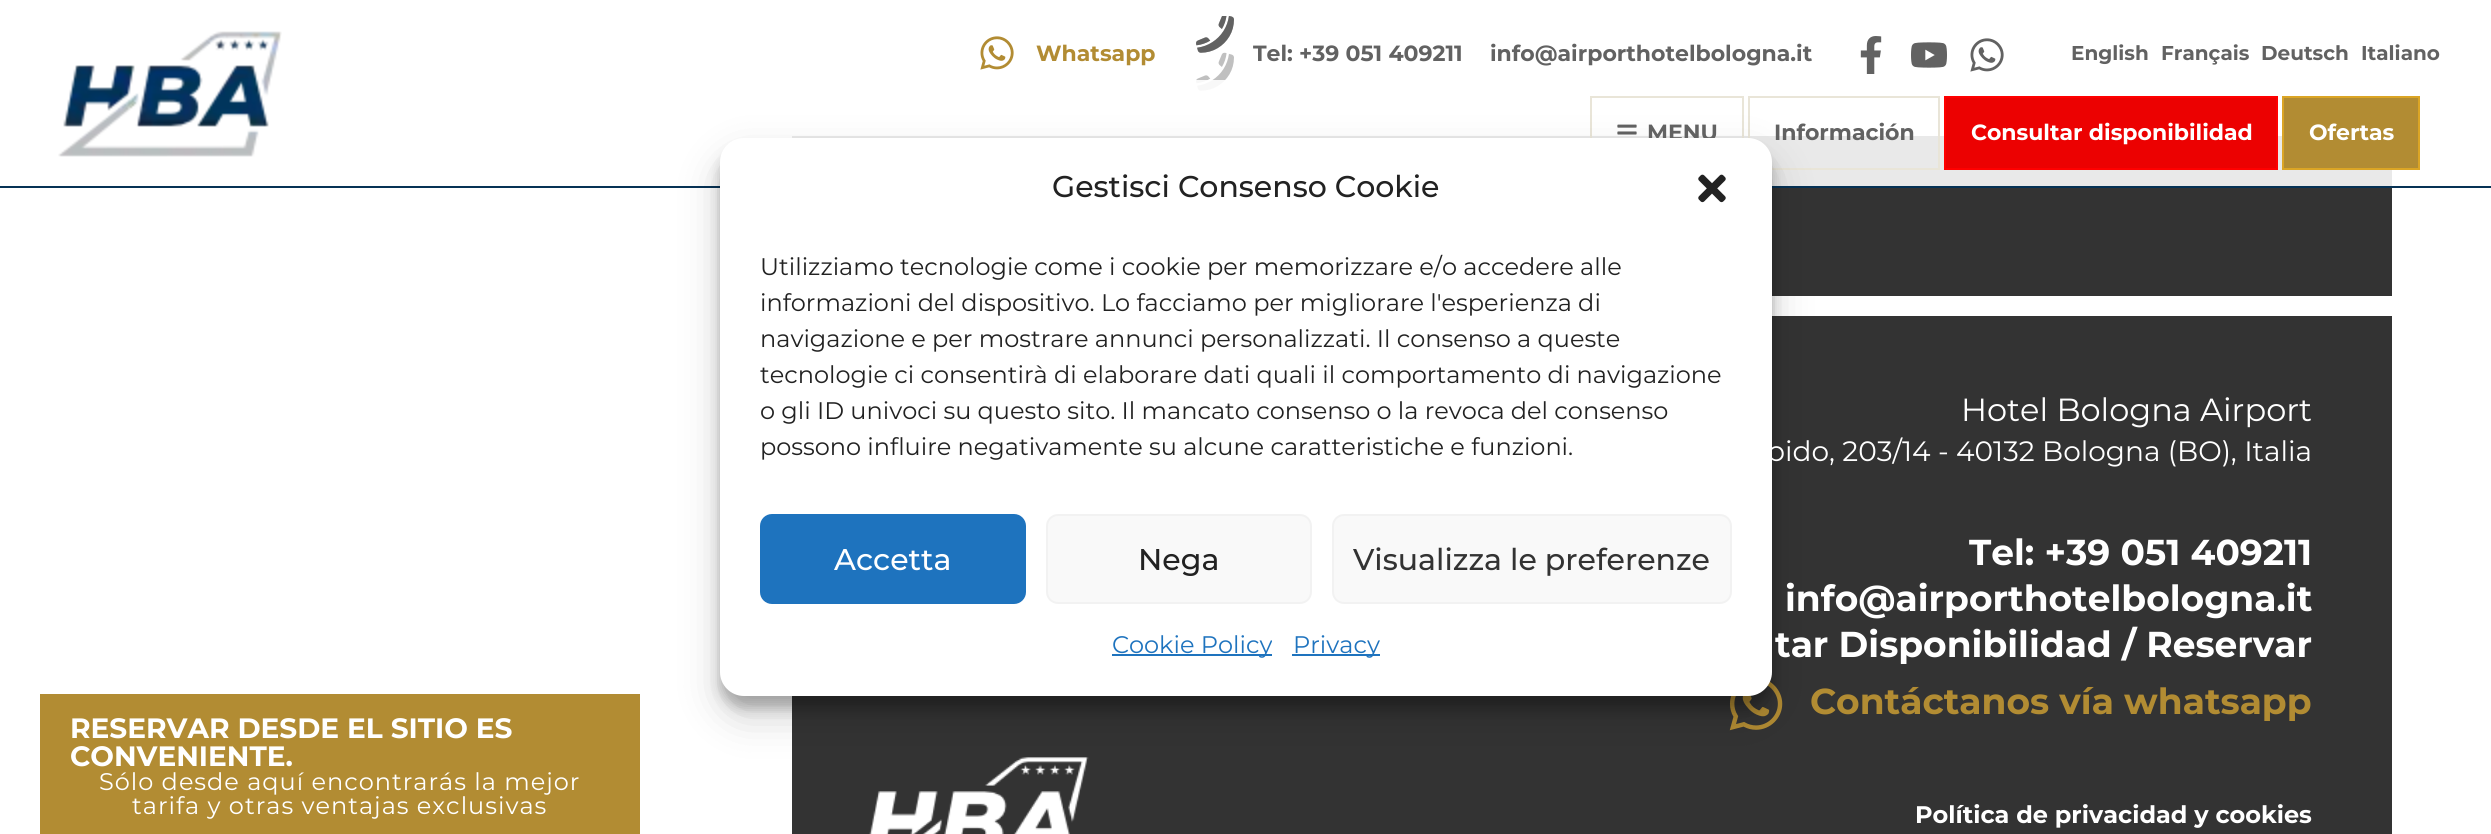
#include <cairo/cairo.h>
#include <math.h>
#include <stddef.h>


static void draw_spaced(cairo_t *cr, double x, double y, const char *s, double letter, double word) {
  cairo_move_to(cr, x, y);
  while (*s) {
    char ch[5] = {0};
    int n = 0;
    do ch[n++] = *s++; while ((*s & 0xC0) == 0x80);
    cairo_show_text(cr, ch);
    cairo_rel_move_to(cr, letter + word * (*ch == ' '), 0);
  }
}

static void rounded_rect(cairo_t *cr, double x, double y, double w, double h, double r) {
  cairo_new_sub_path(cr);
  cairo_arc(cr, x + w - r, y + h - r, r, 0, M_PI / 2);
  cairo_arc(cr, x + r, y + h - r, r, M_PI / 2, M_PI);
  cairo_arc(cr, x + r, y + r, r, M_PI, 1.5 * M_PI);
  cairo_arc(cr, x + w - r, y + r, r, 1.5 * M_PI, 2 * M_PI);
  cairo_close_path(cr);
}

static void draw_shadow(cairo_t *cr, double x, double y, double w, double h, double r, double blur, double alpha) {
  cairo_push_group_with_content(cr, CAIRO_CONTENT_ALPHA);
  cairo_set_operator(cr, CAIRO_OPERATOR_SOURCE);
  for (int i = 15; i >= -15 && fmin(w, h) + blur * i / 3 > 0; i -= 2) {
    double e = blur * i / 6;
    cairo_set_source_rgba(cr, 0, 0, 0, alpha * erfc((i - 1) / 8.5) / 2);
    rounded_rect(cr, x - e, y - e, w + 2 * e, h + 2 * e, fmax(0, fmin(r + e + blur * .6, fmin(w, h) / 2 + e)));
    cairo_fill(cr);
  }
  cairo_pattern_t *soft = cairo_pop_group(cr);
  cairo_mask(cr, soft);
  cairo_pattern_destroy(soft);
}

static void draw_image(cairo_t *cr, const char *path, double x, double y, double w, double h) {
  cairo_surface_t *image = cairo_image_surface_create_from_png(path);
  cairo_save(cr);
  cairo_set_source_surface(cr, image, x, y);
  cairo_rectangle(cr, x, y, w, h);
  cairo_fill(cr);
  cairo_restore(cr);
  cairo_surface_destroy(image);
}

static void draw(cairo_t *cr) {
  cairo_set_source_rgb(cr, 1, 1, 1);
  cairo_paint(cr);
  draw_image(cr, "images/1.png", 980, 36, 34, 34);
  draw_image(cr, "images/2.png", 1196, 16, 38, 37);
  draw_image(cr, "images/3.png", 1196, 16, 38, 37);
  draw_image(cr, "images/4.png", 1196, 52, 38, 39);
  draw_image(cr, "images/5.png", 1860, 36, 22, 38);
  draw_image(cr, "images/6.png", 1911, 42, 36, 26);
  draw_image(cr, "images/7.png", 1970, 38, 34, 34);
  cairo_set_source_rgb(cr, 51 / 255.0, 51 / 255.0, 51 / 255.0);
  cairo_rectangle(cr, 792, 136, 1600, 160);
  cairo_fill(cr);
  cairo_set_source_rgba(cr, 1, 1, 1, 0.89);
  cairo_rectangle(cr, 792, 80, 1600, 106);
  cairo_fill(cr);
  cairo_set_source_rgb(cr, 6 / 255.0, 50 / 255.0, 85 / 255.0);
  cairo_rectangle(cr, 0, 186, 2491, 2);
  cairo_fill(cr);
  draw_image(cr, "images/8.png", 58, 31, 224, 126);
  cairo_rectangle(cr, 1591, 97, 152, 72);
  cairo_set_source_rgb(cr, 233 / 255.0, 229 / 255.0, 216 / 255.0);
  cairo_stroke(cr);
  draw_image(cr, "images/9.png", 1617, 124, 20, 11);
  cairo_rectangle(cr, 1749, 97, 190, 72);
  cairo_stroke(cr);
  cairo_set_source_rgb(cr, 236 / 255.0, 1 / 255.0, 1 / 255.0);
  cairo_rectangle(cr, 1945, 97, 332, 72);
  cairo_fill_preserve(cr);
  cairo_set_source_rgb(cr, 1, 0, 0);
  cairo_stroke(cr);
  cairo_set_source_rgb(cr, 178 / 255.0, 140 / 255.0, 51 / 255.0);
  cairo_rectangle(cr, 2283, 97, 136, 72);
  cairo_fill_preserve(cr);
  cairo_set_source_rgb(cr, 219 / 255.0, 165 / 255.0, 37 / 255.0);
  cairo_stroke(cr);
  cairo_set_source_rgb(cr, 178 / 255.0, 140 / 255.0, 51 / 255.0);
  cairo_rectangle(cr, 40, 694, 600, 140);
  cairo_fill(cr);
  cairo_set_source_rgb(cr, 51 / 255.0, 51 / 255.0, 51 / 255.0);
  cairo_rectangle(cr, 792, 316, 1600, 518);
  cairo_fill(cr);
  draw_image(cr, "images/11.png", 1729, 681, 54, 50);
  cairo_set_source_rgb(cr, 0, 0, 0);
  draw_shadow(cr, 720, 150, 1052, 558, 24, 6, 0.23);
  draw_image(cr, "images/12.png", 869, 757, 220, 77);
  draw_shadow(cr, 720, 158, 1052, 558, 24, 20, 0.19);
  cairo_select_font_face(cr, "Montserrat", CAIRO_FONT_SLANT_NORMAL, CAIRO_FONT_WEIGHT_BOLD);
  cairo_set_font_size(cr, 22);
  cairo_set_source_rgb(cr, 178 / 255.0, 140 / 255.0, 51 / 255.0);
  cairo_move_to(cr, 1036, 61);
  cairo_show_text(cr, "Whatsapp");
  cairo_set_source_rgb(cr, 98 / 255.0, 98 / 255.0, 98 / 255.0);
  cairo_move_to(cr, 1253, 61);
  cairo_show_text(cr, "Tel: +39 051 409211");
  cairo_move_to(cr, 1490, 61);
  cairo_show_text(cr, "info@airporthotelbologna.it");
  cairo_set_font_size(cr, 20);
  cairo_move_to(cr, 2071, 60);
  cairo_show_text(cr, "English");
  cairo_move_to(cr, 2161, 60);
  cairo_show_text(cr, "Français");
  cairo_move_to(cr, 2261, 60);
  cairo_show_text(cr, "Deutsch");
  cairo_move_to(cr, 2361, 60);
  cairo_show_text(cr, "Italiano");
  cairo_set_font_size(cr, 22);
  cairo_move_to(cr, 1647, 140);
  cairo_show_text(cr, "MENU");
  cairo_move_to(cr, 1774, 140);
  cairo_show_text(cr, "Información");
  cairo_set_source_rgb(cr, 1, 1, 1);
  cairo_move_to(cr, 1971, 140);
  cairo_show_text(cr, "Consultar disponibilidad");
  cairo_move_to(cr, 2309, 140);
  cairo_show_text(cr, "Ofertas");
  cairo_set_font_size(cr, 28);
  cairo_move_to(cr, 70, 738);
  cairo_show_text(cr, "RESERVAR DESDE EL SITIO ES");
  cairo_move_to(cr, 70, 766);
  cairo_show_text(cr, "CONVENIENTE.");
  cairo_select_font_face(cr, "Montserrat", CAIRO_FONT_SLANT_NORMAL, CAIRO_FONT_WEIGHT_NORMAL);
  cairo_set_font_size(cr, 24);
  draw_spaced(cr, 99, 790, "Sólo desde aquí encontrarás la mejor", 1, 0);
  draw_spaced(cr, 132, 814, "tarifa y otras ventajas exclusivas", 1, 0);
  rounded_rect(cr, 720, 138, 1052, 558, 24);
  cairo_fill(cr);
  cairo_select_font_face(cr, "Montserrat Medium", CAIRO_FONT_SLANT_NORMAL, CAIRO_FONT_WEIGHT_NORMAL);
  cairo_set_font_size(cr, 30);
  cairo_set_source_rgb(cr, 34 / 255.0, 34 / 255.0, 34 / 255.0);
  cairo_move_to(cr, 1052, 197);
  cairo_show_text(cr, "Gestisci Consenso Cookie");
  draw_image(cr, "images/10.png", 1698, 174, 28, 29);
  cairo_select_font_face(cr, "Montserrat", CAIRO_FONT_SLANT_NORMAL, CAIRO_FONT_WEIGHT_NORMAL);
  cairo_set_font_size(cr, 24);
  cairo_move_to(cr, 760, 275);
  cairo_show_text(cr, "Utilizziamo tecnologie come i cookie per memorizzare e/o accedere alle");
  cairo_move_to(cr, 760, 311);
  cairo_show_text(cr, "informazioni del dispositivo. Lo facciamo per migliorare l'esperienza di");
  cairo_move_to(cr, 760, 347);
  cairo_show_text(cr, "navigazione e per mostrare annunci personalizzati. Il consenso a queste");
  cairo_move_to(cr, 760, 383);
  cairo_show_text(cr, "tecnologie ci consentirà di elaborare dati quali il comportamento di navigazione");
  cairo_move_to(cr, 760, 419);
  cairo_show_text(cr, "o gli ID univoci su questo sito. Il mancato consenso o la revoca del consenso");
  cairo_move_to(cr, 760, 455);
  cairo_show_text(cr, "possono influire negativamente su alcune caratteristiche e funzioni.");
  cairo_set_source_rgb(cr, 30 / 255.0, 115 / 255.0, 190 / 255.0);
  rounded_rect(cr, 761, 515, 264, 88, 11);
  cairo_fill_preserve(cr);
  cairo_stroke(cr);
  cairo_select_font_face(cr, "Montserrat Medium", CAIRO_FONT_SLANT_NORMAL, CAIRO_FONT_WEIGHT_NORMAL);
  cairo_set_font_size(cr, 30);
  cairo_set_source_rgb(cr, 1, 1, 1);
  cairo_move_to(cr, 834, 570);
  cairo_show_text(cr, "Accetta");
  cairo_set_source_rgb(cr, 249 / 255.0, 249 / 255.0, 249 / 255.0);
  rounded_rect(cr, 1047, 515, 264, 88, 11);
  cairo_fill_preserve(cr);
  cairo_set_source_rgb(cr, 242 / 255.0, 242 / 255.0, 242 / 255.0);
  cairo_stroke(cr);
  cairo_set_source_rgb(cr, 34 / 255.0, 34 / 255.0, 34 / 255.0);
  cairo_move_to(cr, 1138, 570);
  cairo_show_text(cr, "Nega");
  cairo_set_source_rgb(cr, 249 / 255.0, 249 / 255.0, 249 / 255.0);
  rounded_rect(cr, 1333, 515, 398, 88, 11);
  cairo_fill_preserve(cr);
  cairo_set_source_rgb(cr, 242 / 255.0, 242 / 255.0, 242 / 255.0);
  cairo_stroke(cr);
  cairo_set_source_rgb(cr, 51 / 255.0, 51 / 255.0, 51 / 255.0);
  cairo_move_to(cr, 1353, 570);
  cairo_show_text(cr, "Visualizza le preferenze");
  cairo_set_source_rgb(cr, 30 / 255.0, 115 / 255.0, 190 / 255.0);
  cairo_rectangle(cr, 1112, 654, 160, 2);
  cairo_fill(cr);
  cairo_select_font_face(cr, "Montserrat", CAIRO_FONT_SLANT_NORMAL, CAIRO_FONT_WEIGHT_NORMAL);
  cairo_set_font_size(cr, 24);
  cairo_move_to(cr, 1112, 653);
  cairo_show_text(cr, "Cookie Policy");
  cairo_rectangle(cr, 1292, 654, 88, 2);
  cairo_fill(cr);
  cairo_move_to(cr, 1293, 653);
  cairo_show_text(cr, "Privacy");
  cairo_set_font_size(cr, 32);
  cairo_set_source_rgb(cr, 1, 1, 1);
  cairo_move_to(cr, 1961, 421);
  cairo_show_text(cr, "Hotel Bologna Airport");
  cairo_set_font_size(cr, 28);
  cairo_move_to(cr, 1766, 461);
  cairo_show_text(cr, "pido, 203/14 - 40132 Bologna (BO), Italia");
  cairo_select_font_face(cr, "Montserrat", CAIRO_FONT_SLANT_NORMAL, CAIRO_FONT_WEIGHT_BOLD);
  cairo_set_font_size(cr, 36);
  cairo_move_to(cr, 1969, 565);
  cairo_show_text(cr, "Tel: +39 051 409211");
  cairo_move_to(cr, 1785, 611);
  cairo_show_text(cr, "info@airporthotelbologna.it");
  cairo_move_to(cr, 1775, 657);
  cairo_show_text(cr, "tar Disponibilidad / Reservar");
  cairo_set_source_rgb(cr, 178 / 255.0, 140 / 255.0, 51 / 255.0);
  cairo_move_to(cr, 1810, 714);
  cairo_show_text(cr, "Contáctanos vía whatsapp");
  cairo_set_font_size(cr, 24);
  cairo_set_source_rgb(cr, 1, 1, 1);
  cairo_move_to(cr, 1915, 823);
  cairo_show_text(cr, "Política de privacidad y cookies");
}

int main(void) {
  cairo_surface_t *surface = cairo_image_surface_create(CAIRO_FORMAT_RGB24, 2491, 834);
  cairo_t *cr = cairo_create(surface);
  cairo_font_options_t *options = cairo_font_options_create();
  cairo_font_options_set_hint_metrics(options, CAIRO_HINT_METRICS_OFF);
  cairo_font_options_set_hint_style(options, CAIRO_HINT_STYLE_NONE);
  cairo_set_font_options(cr, options);
  cairo_set_miter_limit(cr, 4);
  draw(cr);
  cairo_surface_write_to_png(surface, "out.png");
  cairo_font_options_destroy(options);
  cairo_destroy(cr);
  cairo_surface_destroy(surface);
  return 0;
}
